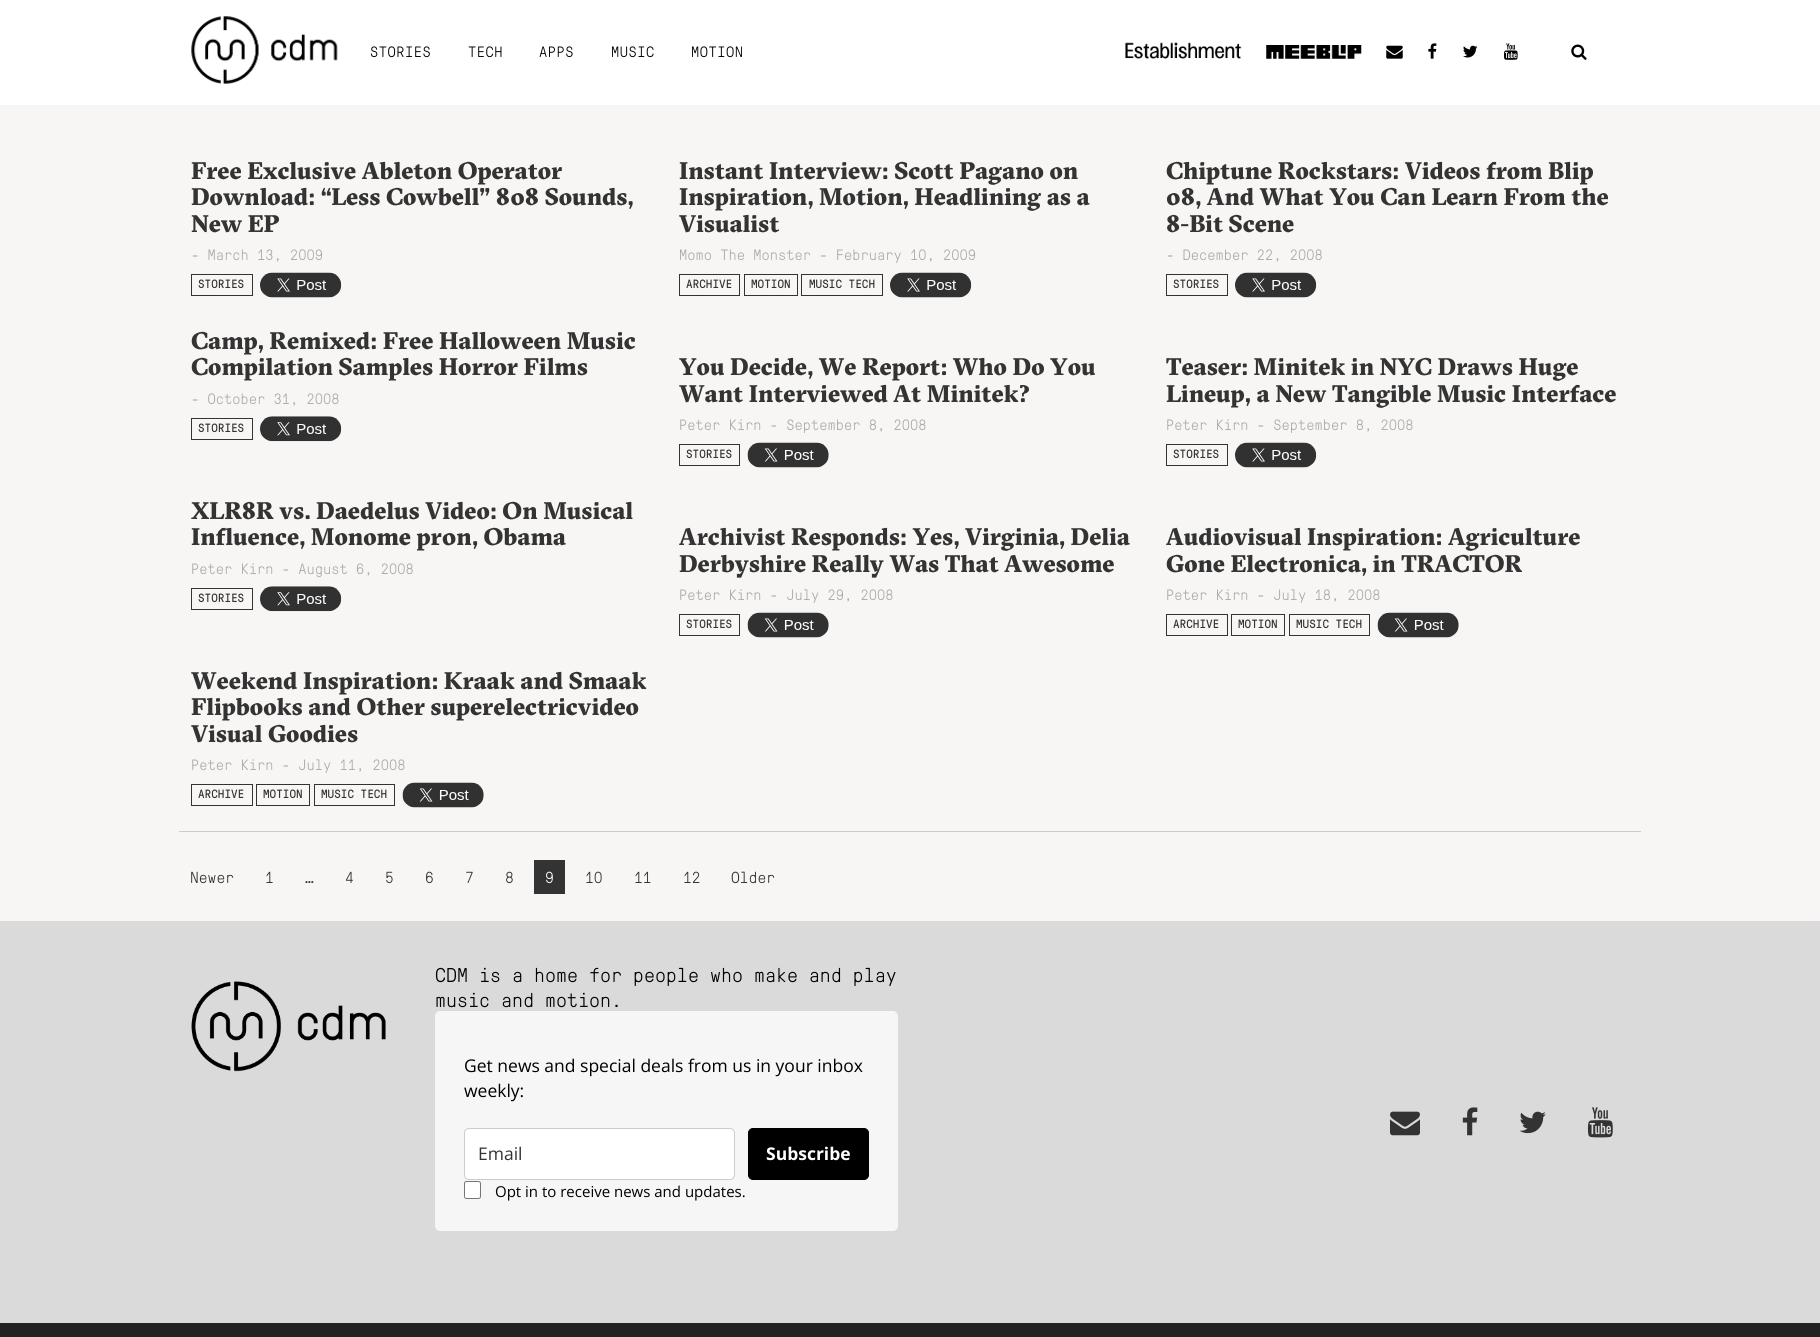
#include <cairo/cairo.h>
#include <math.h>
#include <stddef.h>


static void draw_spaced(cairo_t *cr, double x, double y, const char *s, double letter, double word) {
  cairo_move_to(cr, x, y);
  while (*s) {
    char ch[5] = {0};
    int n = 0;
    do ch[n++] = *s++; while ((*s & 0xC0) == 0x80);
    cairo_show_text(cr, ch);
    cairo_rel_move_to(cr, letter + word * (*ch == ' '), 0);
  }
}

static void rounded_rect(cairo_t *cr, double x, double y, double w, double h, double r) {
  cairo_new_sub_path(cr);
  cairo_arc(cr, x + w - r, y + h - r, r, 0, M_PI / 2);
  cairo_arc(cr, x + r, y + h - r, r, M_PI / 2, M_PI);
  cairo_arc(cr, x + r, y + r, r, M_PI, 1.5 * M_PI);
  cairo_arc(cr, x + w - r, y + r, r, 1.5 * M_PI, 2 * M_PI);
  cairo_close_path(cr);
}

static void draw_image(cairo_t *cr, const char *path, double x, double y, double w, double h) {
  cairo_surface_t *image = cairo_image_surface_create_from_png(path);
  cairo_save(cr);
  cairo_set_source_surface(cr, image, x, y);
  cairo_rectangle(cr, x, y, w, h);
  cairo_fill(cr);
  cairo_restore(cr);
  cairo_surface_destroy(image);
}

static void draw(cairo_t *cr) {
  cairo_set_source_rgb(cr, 247 / 255.0, 246 / 255.0, 244 / 255.0);
  cairo_paint(cr);
  cairo_set_source_rgb(cr, 1, 1, 1);
  cairo_rectangle(cr, 0, 0, 1820, 105);
  cairo_fill(cr);
  draw_image(cr, "images/1.png", 191, 16, 147, 68);
  draw_image(cr, "images/2.png", 1125, 42, 117, 17);
  draw_image(cr, "images/3.png", 1266, 45, 96, 14);
  draw_image(cr, "images/4.png", 1386, 45, 17, 14);
  draw_image(cr, "images/5.png", 1428, 43, 9, 16);
  draw_image(cr, "images/6.png", 1463, 45, 15, 13);
  draw_image(cr, "images/7.png", 1504, 43, 14, 17);
  draw_image(cr, "images/8.png", 1571, 44, 16, 16);
  cairo_rectangle(cr, 191.5, 274.5, 61, 21);
  cairo_set_source_rgb(cr, 51 / 255.0, 51 / 255.0, 51 / 255.0);
  cairo_set_line_width(cr, 1);
  cairo_stroke(cr);
  draw_image(cr, "images/9.png", 260, 272, 82, 26);
  cairo_rectangle(cr, 679.5, 274.5, 60, 21);
  cairo_stroke(cr);
  cairo_rectangle(cr, 744.5, 274.5, 53, 21);
  cairo_stroke(cr);
  cairo_rectangle(cr, 801.5, 274.5, 81, 21);
  cairo_stroke(cr);
  draw_image(cr, "images/9.png", 890, 272, 82, 26);
  cairo_rectangle(cr, 1166.5, 274.5, 61, 21);
  cairo_stroke(cr);
  draw_image(cr, "images/10.png", 1235, 272, 82, 26);
  cairo_rectangle(cr, 191.5, 418.5, 61, 21);
  cairo_stroke(cr);
  draw_image(cr, "images/11.png", 260, 416, 82, 26);
  cairo_rectangle(cr, 679.5, 444.5, 60, 21);
  cairo_stroke(cr);
  draw_image(cr, "images/12.png", 747, 442, 82, 26);
  cairo_rectangle(cr, 1166.5, 444.5, 61, 21);
  cairo_stroke(cr);
  draw_image(cr, "images/10.png", 1235, 442, 82, 26);
  cairo_rectangle(cr, 191.5, 588.5, 61, 21);
  cairo_stroke(cr);
  draw_image(cr, "images/11.png", 260, 586, 82, 26);
  cairo_rectangle(cr, 679.5, 614.5, 60, 21);
  cairo_stroke(cr);
  draw_image(cr, "images/12.png", 747, 612, 82, 26);
  cairo_rectangle(cr, 1166.5, 614.5, 61, 21);
  cairo_stroke(cr);
  cairo_rectangle(cr, 1231.5, 614.5, 53, 21);
  cairo_stroke(cr);
  cairo_rectangle(cr, 1289.5, 614.5, 80, 21);
  cairo_stroke(cr);
  draw_image(cr, "images/13.png", 1377, 612, 82, 26);
  cairo_rectangle(cr, 191.5, 784.5, 61, 21);
  cairo_stroke(cr);
  cairo_rectangle(cr, 256.5, 784.5, 53, 21);
  cairo_stroke(cr);
  cairo_rectangle(cr, 314.5, 784.5, 80, 21);
  cairo_stroke(cr);
  draw_image(cr, "images/13.png", 402, 782, 82, 26);
  cairo_set_source_rgb(cr, 204 / 255.0, 204 / 255.0, 204 / 255.0);
  cairo_rectangle(cr, 179, 831, 1462, 1);
  cairo_fill(cr);
  cairo_set_source_rgb(cr, 51 / 255.0, 51 / 255.0, 51 / 255.0);
  cairo_rectangle(cr, 534, 860, 31, 34);
  cairo_fill(cr);
  cairo_set_source_rgb(cr, 218 / 255.0, 218 / 255.0, 218 / 255.0);
  cairo_rectangle(cr, 0, 921, 1820, 402);
  cairo_fill(cr);
  draw_image(cr, "images/14.png", 191, 981, 195, 91);
  cairo_set_source_rgb(cr, 246 / 255.0, 246 / 255.0, 246 / 255.0);
  rounded_rect(cr, 435, 1011, 463, 220, 5);
  cairo_fill(cr);
  cairo_set_source_rgb(cr, 1, 1, 1);
  rounded_rect(cr, 464.5, 1128.5, 270, 51, 4.5);
  cairo_fill_preserve(cr);
  cairo_set_source_rgb(cr, 204 / 255.0, 204 / 255.0, 204 / 255.0);
  cairo_stroke(cr);
  cairo_set_source_rgb(cr, 0, 0, 0);
  rounded_rect(cr, 748.5, 1128.5, 120, 51, 4.5);
  cairo_fill_preserve(cr);
  cairo_stroke(cr);
  cairo_set_source_rgb(cr, 1, 1, 1);
  rounded_rect(cr, 464.5, 1181.5, 16, 17, 2);
  cairo_fill_preserve(cr);
  cairo_set_source_rgb(cr, 118 / 255.0, 118 / 255.0, 118 / 255.0);
  cairo_stroke(cr);
  draw_image(cr, "images/15.png", 1390, 1111, 30, 25);
  draw_image(cr, "images/16.png", 1462, 1107, 16, 29);
  draw_image(cr, "images/17.png", 1519, 1111, 27, 23);
  draw_image(cr, "images/18.png", 1587, 1107, 26, 31);
  cairo_set_source_rgb(cr, 34 / 255.0, 34 / 255.0, 34 / 255.0);
  cairo_rectangle(cr, 0, 1323, 1820, 14);
  cairo_fill(cr);
  cairo_select_font_face(cr, "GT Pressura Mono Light", CAIRO_FONT_SLANT_NORMAL, CAIRO_FONT_WEIGHT_NORMAL);
  cairo_set_font_size(cr, 15);
  cairo_set_source_rgb(cr, 0, 0, 0);
  draw_spaced(cr, 370, 57, "STORIES", 0.5, 0);
  draw_spaced(cr, 468, 57, "TECH", 0.5, 0);
  draw_spaced(cr, 539, 57, "APPS", 0.5, 0);
  draw_spaced(cr, 611, 57, "MUSIC", 0.5, 0);
  draw_spaced(cr, 691, 57, "MOTION", 0.5, 0);
  cairo_select_font_face(cr, "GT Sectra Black", CAIRO_FONT_SLANT_NORMAL, CAIRO_FONT_WEIGHT_NORMAL);
  cairo_set_font_size(cr, 24);
  cairo_set_source_rgb(cr, 51 / 255.0, 51 / 255.0, 51 / 255.0);
  cairo_move_to(cr, 191, 179);
  cairo_show_text(cr, "Free Exclusive Ableton Operator");
  cairo_move_to(cr, 191, 205);
  cairo_show_text(cr, "Download: “Less Cowbell” 808 Sounds,");
  cairo_move_to(cr, 191, 232);
  cairo_show_text(cr, "New EP");
  cairo_select_font_face(cr, "GT Pressura Mono Light", CAIRO_FONT_SLANT_NORMAL, CAIRO_FONT_WEIGHT_NORMAL);
  cairo_set_font_size(cr, 15);
  cairo_set_source_rgb(cr, 170 / 255.0, 170 / 255.0, 170 / 255.0);
  cairo_move_to(cr, 191, 260);
  cairo_show_text(cr, "- March 13, 2009");
  cairo_select_font_face(cr, "GT Pressura Mono", CAIRO_FONT_SLANT_NORMAL, CAIRO_FONT_WEIGHT_NORMAL);
  cairo_set_font_size(cr, 12);
  cairo_set_source_rgb(cr, 51 / 255.0, 51 / 255.0, 51 / 255.0);
  cairo_move_to(cr, 198, 288);
  cairo_show_text(cr, "STORIES");
  cairo_select_font_face(cr, "GT Sectra Black", CAIRO_FONT_SLANT_NORMAL, CAIRO_FONT_WEIGHT_NORMAL);
  cairo_set_font_size(cr, 24);
  cairo_move_to(cr, 679, 179);
  cairo_show_text(cr, "Instant Interview: Scott Pagano on");
  cairo_move_to(cr, 679, 205);
  cairo_show_text(cr, "Inspiration, Motion, Headlining as a");
  cairo_move_to(cr, 679, 232);
  cairo_show_text(cr, "Visualist");
  cairo_select_font_face(cr, "GT Pressura Mono Light", CAIRO_FONT_SLANT_NORMAL, CAIRO_FONT_WEIGHT_NORMAL);
  cairo_set_font_size(cr, 15);
  cairo_set_source_rgb(cr, 170 / 255.0, 170 / 255.0, 170 / 255.0);
  cairo_move_to(cr, 679, 260);
  cairo_show_text(cr, "Momo The Monster - February 10, 2009");
  cairo_select_font_face(cr, "GT Pressura Mono", CAIRO_FONT_SLANT_NORMAL, CAIRO_FONT_WEIGHT_NORMAL);
  cairo_set_font_size(cr, 12);
  cairo_set_source_rgb(cr, 51 / 255.0, 51 / 255.0, 51 / 255.0);
  cairo_move_to(cr, 686, 288);
  cairo_show_text(cr, "ARCHIVE");
  cairo_move_to(cr, 751, 288);
  cairo_show_text(cr, "MOTION");
  cairo_move_to(cr, 809, 288);
  cairo_show_text(cr, "MUSIC TECH");
  cairo_select_font_face(cr, "GT Sectra Black", CAIRO_FONT_SLANT_NORMAL, CAIRO_FONT_WEIGHT_NORMAL);
  cairo_set_font_size(cr, 24);
  cairo_move_to(cr, 1166, 179);
  cairo_show_text(cr, "Chiptune Rockstars: Videos from Blip");
  cairo_move_to(cr, 1166, 205);
  cairo_show_text(cr, "08, And What You Can Learn From the");
  cairo_move_to(cr, 1166, 232);
  cairo_show_text(cr, "8-Bit Scene");
  cairo_select_font_face(cr, "GT Pressura Mono Light", CAIRO_FONT_SLANT_NORMAL, CAIRO_FONT_WEIGHT_NORMAL);
  cairo_set_font_size(cr, 15);
  cairo_set_source_rgb(cr, 170 / 255.0, 170 / 255.0, 170 / 255.0);
  cairo_move_to(cr, 1166, 260);
  cairo_show_text(cr, "- December 22, 2008");
  cairo_select_font_face(cr, "GT Pressura Mono", CAIRO_FONT_SLANT_NORMAL, CAIRO_FONT_WEIGHT_NORMAL);
  cairo_set_font_size(cr, 12);
  cairo_set_source_rgb(cr, 51 / 255.0, 51 / 255.0, 51 / 255.0);
  cairo_move_to(cr, 1173, 288);
  cairo_show_text(cr, "STORIES");
  cairo_select_font_face(cr, "GT Sectra Black", CAIRO_FONT_SLANT_NORMAL, CAIRO_FONT_WEIGHT_NORMAL);
  cairo_set_font_size(cr, 24);
  cairo_move_to(cr, 191, 349);
  cairo_show_text(cr, "Camp, Remixed: Free Halloween Music");
  cairo_move_to(cr, 191, 375);
  cairo_show_text(cr, "Compilation Samples Horror Films");
  cairo_select_font_face(cr, "GT Pressura Mono Light", CAIRO_FONT_SLANT_NORMAL, CAIRO_FONT_WEIGHT_NORMAL);
  cairo_set_font_size(cr, 15);
  cairo_set_source_rgb(cr, 170 / 255.0, 170 / 255.0, 170 / 255.0);
  cairo_move_to(cr, 191, 404);
  cairo_show_text(cr, "- October 31, 2008");
  cairo_select_font_face(cr, "GT Pressura Mono", CAIRO_FONT_SLANT_NORMAL, CAIRO_FONT_WEIGHT_NORMAL);
  cairo_set_font_size(cr, 12);
  cairo_set_source_rgb(cr, 51 / 255.0, 51 / 255.0, 51 / 255.0);
  cairo_move_to(cr, 198, 432);
  cairo_show_text(cr, "STORIES");
  cairo_select_font_face(cr, "GT Sectra Black", CAIRO_FONT_SLANT_NORMAL, CAIRO_FONT_WEIGHT_NORMAL);
  cairo_set_font_size(cr, 24);
  cairo_move_to(cr, 679, 375);
  cairo_show_text(cr, "You Decide, We Report: Who Do You");
  cairo_move_to(cr, 679, 402);
  cairo_show_text(cr, "Want Interviewed At Minitek?");
  cairo_select_font_face(cr, "GT Pressura Mono Light", CAIRO_FONT_SLANT_NORMAL, CAIRO_FONT_WEIGHT_NORMAL);
  cairo_set_font_size(cr, 15);
  cairo_set_source_rgb(cr, 170 / 255.0, 170 / 255.0, 170 / 255.0);
  cairo_move_to(cr, 679, 430);
  cairo_show_text(cr, "Peter Kirn - September 8, 2008");
  cairo_select_font_face(cr, "GT Pressura Mono", CAIRO_FONT_SLANT_NORMAL, CAIRO_FONT_WEIGHT_NORMAL);
  cairo_set_font_size(cr, 12);
  cairo_set_source_rgb(cr, 51 / 255.0, 51 / 255.0, 51 / 255.0);
  cairo_move_to(cr, 686, 458);
  cairo_show_text(cr, "STORIES");
  cairo_select_font_face(cr, "GT Sectra Black", CAIRO_FONT_SLANT_NORMAL, CAIRO_FONT_WEIGHT_NORMAL);
  cairo_set_font_size(cr, 24);
  cairo_move_to(cr, 1166, 375);
  cairo_show_text(cr, "Teaser: Minitek in NYC Draws Huge");
  cairo_move_to(cr, 1166, 402);
  cairo_show_text(cr, "Lineup, a New Tangible Music Interface");
  cairo_select_font_face(cr, "GT Pressura Mono Light", CAIRO_FONT_SLANT_NORMAL, CAIRO_FONT_WEIGHT_NORMAL);
  cairo_set_font_size(cr, 15);
  cairo_set_source_rgb(cr, 170 / 255.0, 170 / 255.0, 170 / 255.0);
  cairo_move_to(cr, 1166, 430);
  cairo_show_text(cr, "Peter Kirn - September 8, 2008");
  cairo_select_font_face(cr, "GT Pressura Mono", CAIRO_FONT_SLANT_NORMAL, CAIRO_FONT_WEIGHT_NORMAL);
  cairo_set_font_size(cr, 12);
  cairo_set_source_rgb(cr, 51 / 255.0, 51 / 255.0, 51 / 255.0);
  cairo_move_to(cr, 1173, 458);
  cairo_show_text(cr, "STORIES");
  cairo_select_font_face(cr, "GT Sectra Black", CAIRO_FONT_SLANT_NORMAL, CAIRO_FONT_WEIGHT_NORMAL);
  cairo_set_font_size(cr, 24);
  cairo_move_to(cr, 191, 519);
  cairo_show_text(cr, "XLR8R vs. Daedelus Video: On Musical");
  cairo_move_to(cr, 191, 545);
  cairo_show_text(cr, "Influence, Monome pr0n, Obama");
  cairo_select_font_face(cr, "GT Pressura Mono Light", CAIRO_FONT_SLANT_NORMAL, CAIRO_FONT_WEIGHT_NORMAL);
  cairo_set_font_size(cr, 15);
  cairo_set_source_rgb(cr, 170 / 255.0, 170 / 255.0, 170 / 255.0);
  cairo_move_to(cr, 191, 574);
  cairo_show_text(cr, "Peter Kirn - August 6, 2008");
  cairo_select_font_face(cr, "GT Pressura Mono", CAIRO_FONT_SLANT_NORMAL, CAIRO_FONT_WEIGHT_NORMAL);
  cairo_set_font_size(cr, 12);
  cairo_set_source_rgb(cr, 51 / 255.0, 51 / 255.0, 51 / 255.0);
  cairo_move_to(cr, 198, 602);
  cairo_show_text(cr, "STORIES");
  cairo_select_font_face(cr, "GT Sectra Black", CAIRO_FONT_SLANT_NORMAL, CAIRO_FONT_WEIGHT_NORMAL);
  cairo_set_font_size(cr, 24);
  cairo_move_to(cr, 679, 545);
  cairo_show_text(cr, "Archivist Responds: Yes, Virginia, Delia");
  cairo_move_to(cr, 679, 572);
  cairo_show_text(cr, "Derbyshire Really Was That Awesome");
  cairo_select_font_face(cr, "GT Pressura Mono Light", CAIRO_FONT_SLANT_NORMAL, CAIRO_FONT_WEIGHT_NORMAL);
  cairo_set_font_size(cr, 15);
  cairo_set_source_rgb(cr, 170 / 255.0, 170 / 255.0, 170 / 255.0);
  cairo_move_to(cr, 679, 600);
  cairo_show_text(cr, "Peter Kirn - July 29, 2008");
  cairo_select_font_face(cr, "GT Pressura Mono", CAIRO_FONT_SLANT_NORMAL, CAIRO_FONT_WEIGHT_NORMAL);
  cairo_set_font_size(cr, 12);
  cairo_set_source_rgb(cr, 51 / 255.0, 51 / 255.0, 51 / 255.0);
  cairo_move_to(cr, 686, 628);
  cairo_show_text(cr, "STORIES");
  cairo_select_font_face(cr, "GT Sectra Black", CAIRO_FONT_SLANT_NORMAL, CAIRO_FONT_WEIGHT_NORMAL);
  cairo_set_font_size(cr, 24);
  cairo_move_to(cr, 1166, 545);
  cairo_show_text(cr, "Audiovisual Inspiration: Agriculture");
  cairo_move_to(cr, 1166, 572);
  cairo_show_text(cr, "Gone Electronica, in TRACTOR");
  cairo_select_font_face(cr, "GT Pressura Mono Light", CAIRO_FONT_SLANT_NORMAL, CAIRO_FONT_WEIGHT_NORMAL);
  cairo_set_font_size(cr, 15);
  cairo_set_source_rgb(cr, 170 / 255.0, 170 / 255.0, 170 / 255.0);
  cairo_move_to(cr, 1166, 600);
  cairo_show_text(cr, "Peter Kirn - July 18, 2008");
  cairo_select_font_face(cr, "GT Pressura Mono", CAIRO_FONT_SLANT_NORMAL, CAIRO_FONT_WEIGHT_NORMAL);
  cairo_set_font_size(cr, 12);
  cairo_set_source_rgb(cr, 51 / 255.0, 51 / 255.0, 51 / 255.0);
  cairo_move_to(cr, 1173, 628);
  cairo_show_text(cr, "ARCHIVE");
  cairo_move_to(cr, 1238, 628);
  cairo_show_text(cr, "MOTION");
  cairo_move_to(cr, 1296, 628);
  cairo_show_text(cr, "MUSIC TECH");
  cairo_select_font_face(cr, "GT Sectra Black", CAIRO_FONT_SLANT_NORMAL, CAIRO_FONT_WEIGHT_NORMAL);
  cairo_set_font_size(cr, 24);
  cairo_move_to(cr, 191, 689);
  cairo_show_text(cr, "Weekend Inspiration: Kraak and Smaak");
  cairo_move_to(cr, 191, 715);
  cairo_show_text(cr, "Flipbooks and Other superelectricvideo");
  cairo_move_to(cr, 191, 742);
  cairo_show_text(cr, "Visual Goodies");
  cairo_select_font_face(cr, "GT Pressura Mono Light", CAIRO_FONT_SLANT_NORMAL, CAIRO_FONT_WEIGHT_NORMAL);
  cairo_set_font_size(cr, 15);
  cairo_set_source_rgb(cr, 170 / 255.0, 170 / 255.0, 170 / 255.0);
  cairo_move_to(cr, 191, 770);
  cairo_show_text(cr, "Peter Kirn - July 11, 2008");
  cairo_select_font_face(cr, "GT Pressura Mono", CAIRO_FONT_SLANT_NORMAL, CAIRO_FONT_WEIGHT_NORMAL);
  cairo_set_font_size(cr, 12);
  cairo_set_source_rgb(cr, 51 / 255.0, 51 / 255.0, 51 / 255.0);
  cairo_move_to(cr, 198, 798);
  cairo_show_text(cr, "ARCHIVE");
  cairo_move_to(cr, 263, 798);
  cairo_show_text(cr, "MOTION");
  cairo_move_to(cr, 321, 798);
  cairo_show_text(cr, "MUSIC TECH");
  cairo_select_font_face(cr, "GT Pressura Mono Light", CAIRO_FONT_SLANT_NORMAL, CAIRO_FONT_WEIGHT_NORMAL);
  cairo_set_font_size(cr, 16);
  cairo_move_to(cr, 190, 883);
  cairo_show_text(cr, "Newer");
  cairo_move_to(cr, 265, 883);
  cairo_show_text(cr, "1");
  cairo_move_to(cr, 305, 883);
  cairo_show_text(cr, "…");
  cairo_move_to(cr, 345, 883);
  cairo_show_text(cr, "4");
  cairo_move_to(cr, 385, 883);
  cairo_show_text(cr, "5");
  cairo_move_to(cr, 425, 883);
  cairo_show_text(cr, "6");
  cairo_move_to(cr, 465, 883);
  cairo_show_text(cr, "7");
  cairo_move_to(cr, 505, 883);
  cairo_show_text(cr, "8");
  cairo_set_source_rgb(cr, 1, 1, 1);
  cairo_move_to(cr, 545, 883);
  cairo_show_text(cr, "9");
  cairo_set_source_rgb(cr, 51 / 255.0, 51 / 255.0, 51 / 255.0);
  cairo_move_to(cr, 585, 883);
  cairo_show_text(cr, "10");
  cairo_move_to(cr, 634, 883);
  cairo_show_text(cr, "11");
  cairo_move_to(cr, 683, 883);
  cairo_show_text(cr, "12");
  cairo_move_to(cr, 731, 883);
  cairo_show_text(cr, "Older");
  cairo_set_font_size(cr, 20);
  cairo_set_source_rgb(cr, 0, 0, 0);
  cairo_move_to(cr, 435, 982);
  cairo_show_text(cr, "CDM is a home for people who make and play");
  cairo_move_to(cr, 435, 1007);
  cairo_show_text(cr, "music and motion.");
  cairo_select_font_face(cr, "Open Sans", CAIRO_FONT_SLANT_NORMAL, CAIRO_FONT_WEIGHT_NORMAL);
  cairo_set_font_size(cr, 17.5);
  cairo_move_to(cr, 464, 1072);
  cairo_show_text(cr, "Get news and special deals from us in your inbox");
  cairo_move_to(cr, 464, 1097);
  cairo_show_text(cr, "weekly:");
  cairo_set_source_rgb(cr, 51 / 255.0, 51 / 255.0, 51 / 255.0);
  cairo_move_to(cr, 478, 1160);
  cairo_show_text(cr, "Email");
  cairo_select_font_face(cr, "Open Sans", CAIRO_FONT_SLANT_NORMAL, CAIRO_FONT_WEIGHT_BOLD);
  cairo_set_source_rgb(cr, 1, 1, 1);
  cairo_move_to(cr, 766, 1160);
  cairo_show_text(cr, "Subscribe");
  cairo_select_font_face(cr, "Open Sans", CAIRO_FONT_SLANT_NORMAL, CAIRO_FONT_WEIGHT_NORMAL);
  cairo_set_font_size(cr, 15);
  cairo_set_source_rgb(cr, 0, 0, 0);
  cairo_move_to(cr, 495, 1197);
  cairo_show_text(cr, "Opt in to receive news and updates.");
}

int main(void) {
  cairo_surface_t *surface = cairo_image_surface_create(CAIRO_FORMAT_RGB24, 1820, 1337);
  cairo_t *cr = cairo_create(surface);
  cairo_font_options_t *options = cairo_font_options_create();
  cairo_font_options_set_hint_metrics(options, CAIRO_HINT_METRICS_OFF);
  cairo_font_options_set_hint_style(options, CAIRO_HINT_STYLE_NONE);
  cairo_set_font_options(cr, options);
  cairo_set_miter_limit(cr, 4);
  draw(cr);
  cairo_surface_write_to_png(surface, "out.png");
  cairo_font_options_destroy(options);
  cairo_destroy(cr);
  cairo_surface_destroy(surface);
  return 0;
}
